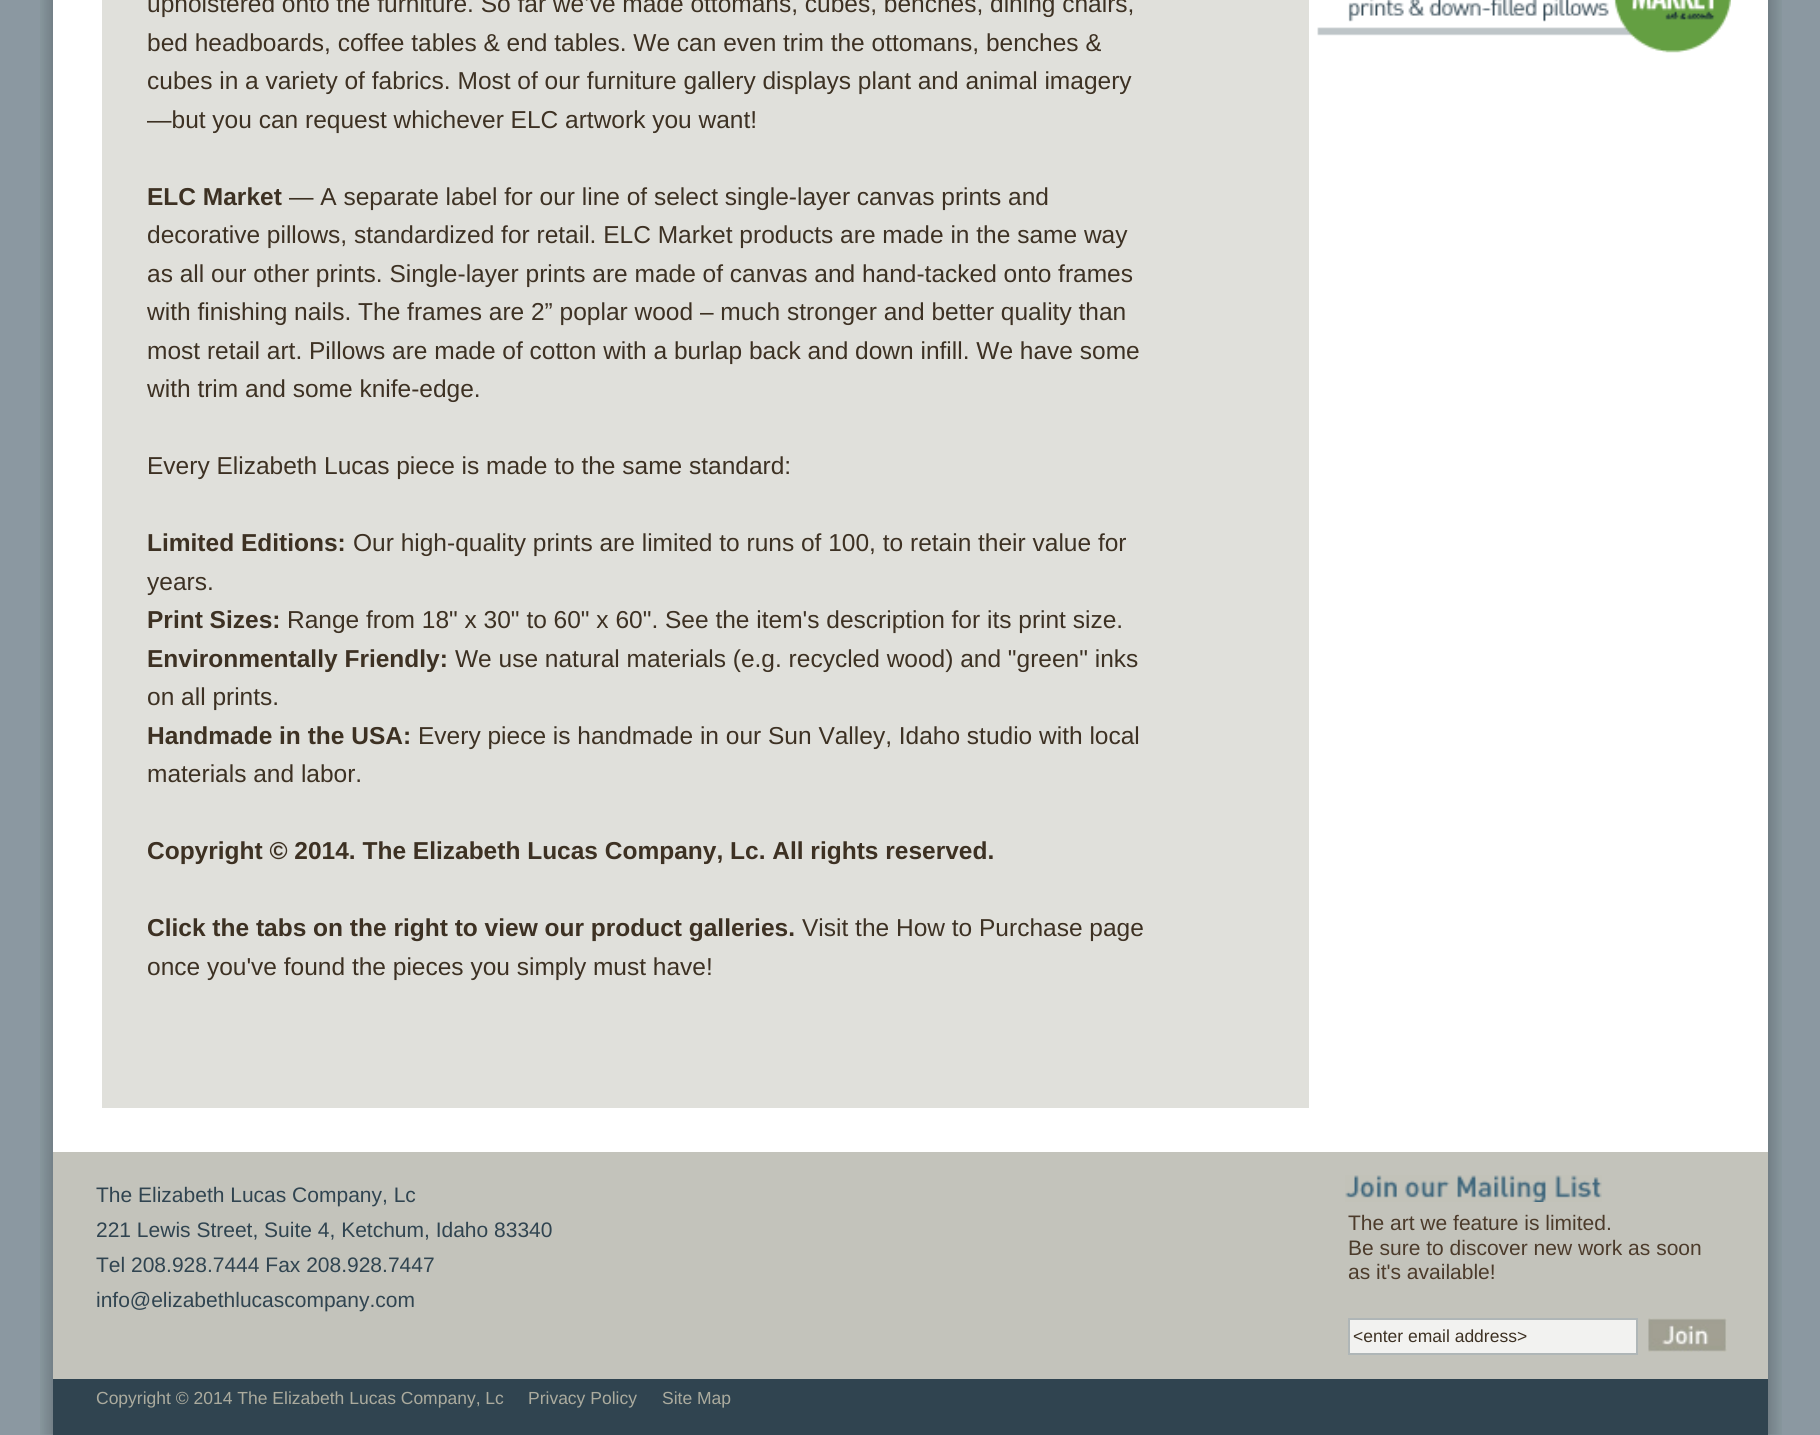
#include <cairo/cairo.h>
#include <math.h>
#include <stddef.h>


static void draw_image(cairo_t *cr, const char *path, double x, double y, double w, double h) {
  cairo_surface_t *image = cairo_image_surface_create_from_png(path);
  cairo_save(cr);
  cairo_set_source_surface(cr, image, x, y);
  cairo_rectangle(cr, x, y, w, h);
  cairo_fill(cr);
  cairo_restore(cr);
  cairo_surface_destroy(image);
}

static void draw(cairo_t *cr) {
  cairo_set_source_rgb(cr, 139 / 255.0, 152 / 255.0, 161 / 255.0);
  cairo_paint(cr);
  draw_image(cr, "images/1.png", 40, 0, 1742, 1435);
  cairo_set_source_rgb(cr, 1, 1, 1);
  cairo_rectangle(cr, 53, 0, 49, 1108);
  cairo_fill(cr);
  cairo_set_source_rgb(cr, 224 / 255.0, 224 / 255.0, 219 / 255.0);
  cairo_rectangle(cr, 102, 0, 1207, 1108);
  cairo_fill(cr);
  cairo_set_source_rgb(cr, 1, 1, 1);
  cairo_rectangle(cr, 1309, 0, 459, 1108);
  cairo_fill(cr);
  draw_image(cr, "images/2.png", 1317, 0, 414, 53);
  cairo_rectangle(cr, 53, 1108, 1715, 44);
  cairo_fill(cr);
  cairo_set_source_rgb(cr, 195 / 255.0, 195 / 255.0, 187 / 255.0);
  cairo_rectangle(cr, 53, 1152, 1715, 227);
  cairo_fill(cr);
  draw_image(cr, "images/3.png", 1345, 1175, 257, 27);
  cairo_set_source_rgb(cr, 242 / 255.0, 242 / 255.0, 240 / 255.0);
  cairo_rectangle(cr, 1349, 1319, 288, 35);
  cairo_fill_preserve(cr);
  cairo_set_source_rgb(cr, 175 / 255.0, 182 / 255.0, 183 / 255.0);
  cairo_stroke(cr);
  draw_image(cr, "images/4.png", 1648, 1318, 79, 34);
  cairo_set_source_rgb(cr, 48 / 255.0, 68 / 255.0, 80 / 255.0);
  cairo_rectangle(cr, 53, 1379, 1715, 56);
  cairo_fill(cr);
  cairo_select_font_face(cr, "Liberation Sans", CAIRO_FONT_SLANT_NORMAL, CAIRO_FONT_WEIGHT_NORMAL);
  cairo_set_font_size(cr, 24.5);
  cairo_set_source_rgb(cr, 61 / 255.0, 49 / 255.0, 35 / 255.0);
  cairo_move_to(cr, 147, 12);
  cairo_show_text(cr, "upholstered onto the furniture. So far we’ve made ottomans, cubes, benches, dining chairs,");
  cairo_move_to(cr, 147, 51);
  cairo_show_text(cr, "bed headboards, coffee tables & end tables. We can even trim the ottomans, benches &");
  cairo_move_to(cr, 147, 89);
  cairo_show_text(cr, "cubes in a variety of fabrics. Most of our furniture gallery displays plant and animal imagery");
  cairo_move_to(cr, 147, 128);
  cairo_show_text(cr, "—but you can request whichever ELC artwork you want!");
  cairo_select_font_face(cr, "Liberation Sans", CAIRO_FONT_SLANT_NORMAL, CAIRO_FONT_WEIGHT_BOLD);
  cairo_move_to(cr, 147, 205);
  cairo_show_text(cr, "ELC Market");
  cairo_select_font_face(cr, "Liberation Sans", CAIRO_FONT_SLANT_NORMAL, CAIRO_FONT_WEIGHT_NORMAL);
  cairo_move_to(cr, 289, 205);
  cairo_show_text(cr, "— A separate label for our line of select single-layer canvas prints and");
  cairo_move_to(cr, 147, 243);
  cairo_show_text(cr, "decorative pillows, standardized for retail. ELC Market products are made in the same way");
  cairo_move_to(cr, 147, 282);
  cairo_show_text(cr, "as all our other prints. Single-layer prints are made of canvas and hand-tacked onto frames");
  cairo_move_to(cr, 147, 320);
  cairo_show_text(cr, "with finishing nails. The frames are 2” poplar wood – much stronger and better quality than");
  cairo_move_to(cr, 147, 359);
  cairo_show_text(cr, "most retail art. Pillows are made of cotton with a burlap back and down infill. We have some");
  cairo_move_to(cr, 147, 397);
  cairo_show_text(cr, "with trim and some knife-edge.");
  cairo_move_to(cr, 147, 474);
  cairo_show_text(cr, "Every Elizabeth Lucas piece is made to the same standard:");
  cairo_select_font_face(cr, "Liberation Sans", CAIRO_FONT_SLANT_NORMAL, CAIRO_FONT_WEIGHT_BOLD);
  cairo_move_to(cr, 147, 551);
  cairo_show_text(cr, "Limited Editions:");
  cairo_select_font_face(cr, "Liberation Sans", CAIRO_FONT_SLANT_NORMAL, CAIRO_FONT_WEIGHT_NORMAL);
  cairo_move_to(cr, 353, 551);
  cairo_show_text(cr, "Our high-quality prints are limited to runs of 100, to retain their value for");
  cairo_move_to(cr, 147, 590);
  cairo_show_text(cr, "years.");
  cairo_select_font_face(cr, "Liberation Sans", CAIRO_FONT_SLANT_NORMAL, CAIRO_FONT_WEIGHT_BOLD);
  cairo_move_to(cr, 147, 628);
  cairo_show_text(cr, "Print Sizes:");
  cairo_select_font_face(cr, "Liberation Sans", CAIRO_FONT_SLANT_NORMAL, CAIRO_FONT_WEIGHT_NORMAL);
  cairo_move_to(cr, 287, 628);
  cairo_show_text(cr, "Range from 18\" x 30\" to 60\" x 60\". See the item's description for its print size.");
  cairo_select_font_face(cr, "Liberation Sans", CAIRO_FONT_SLANT_NORMAL, CAIRO_FONT_WEIGHT_BOLD);
  cairo_move_to(cr, 147, 667);
  cairo_show_text(cr, "Environmentally Friendly:");
  cairo_select_font_face(cr, "Liberation Sans", CAIRO_FONT_SLANT_NORMAL, CAIRO_FONT_WEIGHT_NORMAL);
  cairo_move_to(cr, 455, 667);
  cairo_show_text(cr, "We use natural materials (e.g. recycled wood) and \"green\" inks");
  cairo_move_to(cr, 147, 705);
  cairo_show_text(cr, "on all prints.");
  cairo_select_font_face(cr, "Liberation Sans", CAIRO_FONT_SLANT_NORMAL, CAIRO_FONT_WEIGHT_BOLD);
  cairo_move_to(cr, 147, 744);
  cairo_show_text(cr, "Handmade in the USA:");
  cairo_select_font_face(cr, "Liberation Sans", CAIRO_FONT_SLANT_NORMAL, CAIRO_FONT_WEIGHT_NORMAL);
  cairo_move_to(cr, 418, 744);
  cairo_show_text(cr, "Every piece is handmade in our Sun Valley, Idaho studio with local");
  cairo_move_to(cr, 147, 782);
  cairo_show_text(cr, "materials and labor.");
  cairo_select_font_face(cr, "Liberation Sans", CAIRO_FONT_SLANT_NORMAL, CAIRO_FONT_WEIGHT_BOLD);
  cairo_move_to(cr, 147, 859);
  cairo_show_text(cr, "Copyright © 2014. The Elizabeth Lucas Company, Lc. All rights reserved.");
  cairo_move_to(cr, 147, 936);
  cairo_show_text(cr, "Click the tabs on the right to view our product galleries.");
  cairo_select_font_face(cr, "Liberation Sans", CAIRO_FONT_SLANT_NORMAL, CAIRO_FONT_WEIGHT_NORMAL);
  cairo_move_to(cr, 802, 936);
  cairo_show_text(cr, "Visit the How to Purchase page");
  cairo_move_to(cr, 147, 975);
  cairo_show_text(cr, "once you've found the pieces you simply must have!");
  cairo_set_font_size(cr, 21);
  cairo_set_source_rgb(cr, 48 / 255.0, 68 / 255.0, 80 / 255.0);
  cairo_move_to(cr, 96, 1202);
  cairo_show_text(cr, "The Elizabeth Lucas Company, Lc");
  cairo_move_to(cr, 96, 1237);
  cairo_show_text(cr, "221 Lewis Street, Suite 4, Ketchum, Idaho 83340");
  cairo_move_to(cr, 96, 1272);
  cairo_show_text(cr, "Tel 208.928.7444 Fax 208.928.7447");
  cairo_move_to(cr, 96, 1307);
  cairo_show_text(cr, "info@elizabethlucascompany.com");
  cairo_set_source_rgb(cr, 76 / 255.0, 59 / 255.0, 43 / 255.0);
  cairo_move_to(cr, 1348, 1230);
  cairo_show_text(cr, "The art we feature is limited.");
  cairo_move_to(cr, 1348, 1255);
  cairo_show_text(cr, "Be sure to discover new work as soon");
  cairo_move_to(cr, 1348, 1279);
  cairo_show_text(cr, "as it's available!");
  cairo_set_font_size(cr, 17.5);
  cairo_set_source_rgb(cr, 61 / 255.0, 49 / 255.0, 35 / 255.0);
  cairo_move_to(cr, 1353, 1342);
  cairo_show_text(cr, "<enter email address>");
  cairo_set_source_rgb(cr, 171 / 255.0, 171 / 255.0, 158 / 255.0);
  cairo_move_to(cr, 96, 1404);
  cairo_show_text(cr, "Copyright © 2014 The Elizabeth Lucas Company, Lc");
  cairo_move_to(cr, 528, 1404);
  cairo_show_text(cr, "Privacy Policy");
  cairo_move_to(cr, 662, 1404);
  cairo_show_text(cr, "Site Map");
}

int main(void) {
  cairo_surface_t *surface = cairo_image_surface_create(CAIRO_FORMAT_RGB24, 1820, 1435);
  cairo_t *cr = cairo_create(surface);
  cairo_font_options_t *options = cairo_font_options_create();
  cairo_font_options_set_hint_metrics(options, CAIRO_HINT_METRICS_OFF);
  cairo_font_options_set_hint_style(options, CAIRO_HINT_STYLE_NONE);
  cairo_set_font_options(cr, options);
  cairo_set_miter_limit(cr, 4);
  draw(cr);
  cairo_surface_write_to_png(surface, "out.png");
  cairo_font_options_destroy(options);
  cairo_destroy(cr);
  cairo_surface_destroy(surface);
  return 0;
}
